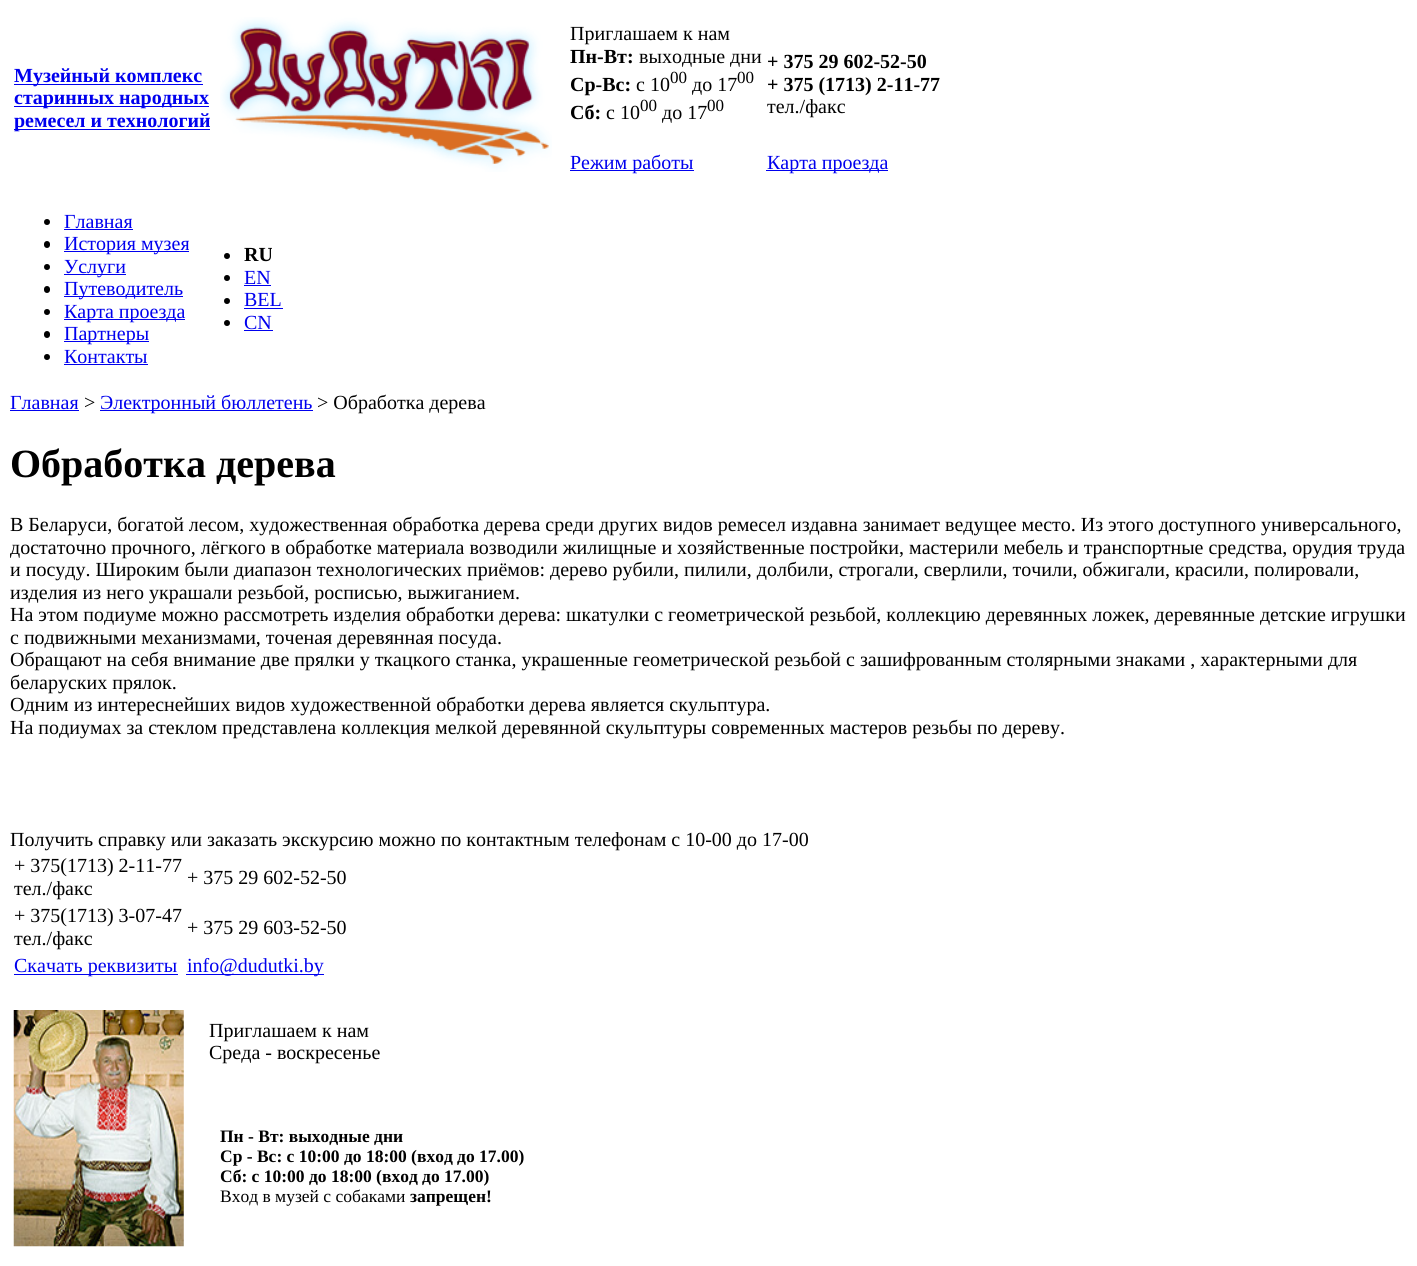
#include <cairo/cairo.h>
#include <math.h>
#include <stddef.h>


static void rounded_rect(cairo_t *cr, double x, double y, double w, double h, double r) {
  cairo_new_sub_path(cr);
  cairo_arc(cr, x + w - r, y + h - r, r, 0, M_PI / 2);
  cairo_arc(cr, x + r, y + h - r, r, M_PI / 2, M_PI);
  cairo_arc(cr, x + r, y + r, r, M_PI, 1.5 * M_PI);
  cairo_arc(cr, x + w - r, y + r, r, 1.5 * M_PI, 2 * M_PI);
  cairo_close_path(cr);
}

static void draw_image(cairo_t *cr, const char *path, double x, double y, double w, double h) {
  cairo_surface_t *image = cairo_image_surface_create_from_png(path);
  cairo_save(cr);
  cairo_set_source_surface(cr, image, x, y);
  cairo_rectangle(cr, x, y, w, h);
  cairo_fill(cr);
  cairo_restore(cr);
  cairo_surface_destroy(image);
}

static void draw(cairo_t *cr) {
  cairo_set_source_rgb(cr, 1, 1, 1);
  cairo_paint(cr);
  cairo_set_source_rgb(cr, 0, 0, 238 / 255.0);
  cairo_rectangle(cr, 14, 84, 189, 1);
  cairo_fill(cr);
  cairo_rectangle(cr, 14, 106, 195, 1);
  cairo_fill(cr);
  cairo_rectangle(cr, 14, 129, 196, 1);
  cairo_fill(cr);
  draw_image(cr, "images/1.png", 220, 17, 332, 155);
  cairo_rectangle(cr, 570, 170, 124, 1);
  cairo_fill(cr);
  cairo_rectangle(cr, 766, 170, 122, 1);
  cairo_fill(cr);
  cairo_set_source_rgb(cr, 0, 0, 0);
  cairo_arc(cr, 47, 222, 3, 0, 2 * M_PI);
  cairo_fill(cr);
  cairo_set_source_rgb(cr, 0, 0, 238 / 255.0);
  cairo_rectangle(cr, 64, 229, 69, 1);
  cairo_fill(cr);
  cairo_set_source_rgb(cr, 0, 0, 0);
  rounded_rect(cr, 44, 241, 6, 7, 3);
  cairo_fill(cr);
  cairo_set_source_rgb(cr, 0, 0, 238 / 255.0);
  cairo_rectangle(cr, 64, 251, 125, 1);
  cairo_fill(cr);
  cairo_set_source_rgb(cr, 0, 0, 0);
  cairo_arc(cr, 47, 267, 3, 0, 2 * M_PI);
  cairo_fill(cr);
  cairo_set_source_rgb(cr, 0, 0, 238 / 255.0);
  cairo_rectangle(cr, 64, 274, 62, 1);
  cairo_fill(cr);
  cairo_set_source_rgb(cr, 0, 0, 0);
  rounded_rect(cr, 44, 286, 6, 7, 3);
  cairo_fill(cr);
  cairo_set_source_rgb(cr, 0, 0, 238 / 255.0);
  cairo_rectangle(cr, 64, 296, 119, 1);
  cairo_fill(cr);
  cairo_set_source_rgb(cr, 0, 0, 0);
  cairo_arc(cr, 47, 312, 3, 0, 2 * M_PI);
  cairo_fill(cr);
  cairo_set_source_rgb(cr, 0, 0, 238 / 255.0);
  cairo_rectangle(cr, 64, 319, 121, 1);
  cairo_fill(cr);
  cairo_set_source_rgb(cr, 0, 0, 0);
  rounded_rect(cr, 44, 331, 6, 7, 3);
  cairo_fill(cr);
  cairo_set_source_rgb(cr, 0, 0, 238 / 255.0);
  cairo_rectangle(cr, 64, 341, 85, 1);
  cairo_fill(cr);
  cairo_set_source_rgb(cr, 0, 0, 0);
  cairo_arc(cr, 47, 357, 3, 0, 2 * M_PI);
  cairo_fill(cr);
  cairo_set_source_rgb(cr, 0, 0, 238 / 255.0);
  cairo_rectangle(cr, 64, 364, 84, 1);
  cairo_fill(cr);
  cairo_set_source_rgb(cr, 0, 0, 0);
  cairo_arc(cr, 227, 256, 3, 0, 2 * M_PI);
  cairo_fill(cr);
  cairo_arc(cr, 227, 278, 3, 0, 2 * M_PI);
  cairo_fill(cr);
  cairo_set_source_rgb(cr, 0, 0, 238 / 255.0);
  cairo_rectangle(cr, 244, 285, 27, 1);
  cairo_fill(cr);
  cairo_set_source_rgb(cr, 0, 0, 0);
  cairo_arc(cr, 227, 301, 3, 0, 2 * M_PI);
  cairo_fill(cr);
  cairo_set_source_rgb(cr, 0, 0, 238 / 255.0);
  cairo_rectangle(cr, 244, 308, 39, 1);
  cairo_fill(cr);
  cairo_set_source_rgb(cr, 0, 0, 0);
  cairo_arc(cr, 227, 323, 3, 0, 2 * M_PI);
  cairo_fill(cr);
  cairo_set_source_rgb(cr, 0, 0, 238 / 255.0);
  cairo_rectangle(cr, 244, 330, 29, 1);
  cairo_fill(cr);
  cairo_rectangle(cr, 10, 410, 69, 1);
  cairo_fill(cr);
  cairo_rectangle(cr, 100, 410, 213, 1);
  cairo_fill(cr);
  cairo_rectangle(cr, 14, 974, 164, 1);
  cairo_fill(cr);
  cairo_rectangle(cr, 186, 974, 138, 1);
  cairo_fill(cr);
  draw_image(cr, "images/2.png", 13, 1010, 171, 237);
  cairo_select_font_face(cr, "Liberation Serif", CAIRO_FONT_SLANT_NORMAL, CAIRO_FONT_WEIGHT_BOLD);
  cairo_set_font_size(cr, 20);
  cairo_move_to(cr, 14, 82);
  cairo_show_text(cr, "Музейный комплекс");
  cairo_move_to(cr, 14, 104);
  cairo_show_text(cr, "старинных народных");
  cairo_move_to(cr, 14, 127);
  cairo_show_text(cr, "ремесел и технологий");
  cairo_select_font_face(cr, "Liberation Serif", CAIRO_FONT_SLANT_NORMAL, CAIRO_FONT_WEIGHT_NORMAL);
  cairo_set_source_rgb(cr, 0, 0, 0);
  cairo_move_to(cr, 570, 40);
  cairo_show_text(cr, "Приглашаем к нам");
  cairo_select_font_face(cr, "Liberation Serif", CAIRO_FONT_SLANT_NORMAL, CAIRO_FONT_WEIGHT_BOLD);
  cairo_move_to(cr, 570, 63);
  cairo_show_text(cr, "Пн-Вт:");
  cairo_select_font_face(cr, "Liberation Serif", CAIRO_FONT_SLANT_NORMAL, CAIRO_FONT_WEIGHT_NORMAL);
  cairo_move_to(cr, 639, 63);
  cairo_show_text(cr, "выходные дни");
  cairo_select_font_face(cr, "Liberation Serif", CAIRO_FONT_SLANT_NORMAL, CAIRO_FONT_WEIGHT_BOLD);
  cairo_move_to(cr, 570, 91);
  cairo_show_text(cr, "Ср-Вс:");
  cairo_select_font_face(cr, "Liberation Serif", CAIRO_FONT_SLANT_NORMAL, CAIRO_FONT_WEIGHT_NORMAL);
  cairo_move_to(cr, 636, 91);
  cairo_show_text(cr, "с 10");
  cairo_set_font_size(cr, 17);
  cairo_move_to(cr, 670, 83);
  cairo_show_text(cr, "00");
  cairo_set_font_size(cr, 20);
  cairo_move_to(cr, 692, 91);
  cairo_show_text(cr, "до 17");
  cairo_set_font_size(cr, 17);
  cairo_move_to(cr, 737, 83);
  cairo_show_text(cr, "00");
  cairo_select_font_face(cr, "Liberation Serif", CAIRO_FONT_SLANT_NORMAL, CAIRO_FONT_WEIGHT_BOLD);
  cairo_set_font_size(cr, 20);
  cairo_move_to(cr, 570, 119);
  cairo_show_text(cr, "Сб:");
  cairo_select_font_face(cr, "Liberation Serif", CAIRO_FONT_SLANT_NORMAL, CAIRO_FONT_WEIGHT_NORMAL);
  cairo_move_to(cr, 606, 119);
  cairo_show_text(cr, "с 10");
  cairo_set_font_size(cr, 17);
  cairo_move_to(cr, 640, 111);
  cairo_show_text(cr, "00");
  cairo_set_font_size(cr, 20);
  cairo_move_to(cr, 662, 119);
  cairo_show_text(cr, "до 17");
  cairo_set_font_size(cr, 17);
  cairo_move_to(cr, 707, 111);
  cairo_show_text(cr, "00");
  cairo_select_font_face(cr, "Liberation Serif", CAIRO_FONT_SLANT_NORMAL, CAIRO_FONT_WEIGHT_BOLD);
  cairo_set_font_size(cr, 20);
  cairo_move_to(cr, 767, 68);
  cairo_show_text(cr, "+ 375 29 602-52-50");
  cairo_move_to(cr, 767, 91);
  cairo_show_text(cr, "+ 375 (1713) 2-11-77");
  cairo_select_font_face(cr, "Liberation Serif", CAIRO_FONT_SLANT_NORMAL, CAIRO_FONT_WEIGHT_NORMAL);
  cairo_move_to(cr, 767, 113);
  cairo_show_text(cr, "тел./факс");
  cairo_set_source_rgb(cr, 0, 0, 238 / 255.0);
  cairo_move_to(cr, 570, 169);
  cairo_show_text(cr, "Режим работы");
  cairo_move_to(cr, 767, 169);
  cairo_show_text(cr, "Карта проезда");
  cairo_move_to(cr, 64, 228);
  cairo_show_text(cr, "Главная");
  cairo_move_to(cr, 64, 250);
  cairo_show_text(cr, "История музея");
  cairo_move_to(cr, 64, 273);
  cairo_show_text(cr, "Услуги");
  cairo_move_to(cr, 64, 295);
  cairo_show_text(cr, "Путеводитель");
  cairo_move_to(cr, 64, 318);
  cairo_show_text(cr, "Карта проезда");
  cairo_move_to(cr, 64, 340);
  cairo_show_text(cr, "Партнеры");
  cairo_move_to(cr, 64, 363);
  cairo_show_text(cr, "Контакты");
  cairo_select_font_face(cr, "Liberation Serif", CAIRO_FONT_SLANT_NORMAL, CAIRO_FONT_WEIGHT_BOLD);
  cairo_set_source_rgb(cr, 0, 0, 0);
  cairo_move_to(cr, 244, 261);
  cairo_show_text(cr, "RU");
  cairo_select_font_face(cr, "Liberation Serif", CAIRO_FONT_SLANT_NORMAL, CAIRO_FONT_WEIGHT_NORMAL);
  cairo_set_source_rgb(cr, 0, 0, 238 / 255.0);
  cairo_move_to(cr, 244, 284);
  cairo_show_text(cr, "EN");
  cairo_move_to(cr, 244, 306);
  cairo_show_text(cr, "BEL");
  cairo_move_to(cr, 244, 329);
  cairo_show_text(cr, "CN");
  cairo_move_to(cr, 10, 409);
  cairo_show_text(cr, "Главная");
  cairo_set_source_rgb(cr, 0, 0, 0);
  cairo_move_to(cr, 84, 409);
  cairo_show_text(cr, ">");
  cairo_set_source_rgb(cr, 0, 0, 238 / 255.0);
  cairo_move_to(cr, 100, 409);
  cairo_show_text(cr, "Электронный бюллетень");
  cairo_set_source_rgb(cr, 0, 0, 0);
  cairo_move_to(cr, 317, 409);
  cairo_show_text(cr, "> Обработка дерева");
  cairo_select_font_face(cr, "Liberation Serif", CAIRO_FONT_SLANT_NORMAL, CAIRO_FONT_WEIGHT_BOLD);
  cairo_set_font_size(cr, 40);
  cairo_move_to(cr, 10, 477);
  cairo_show_text(cr, "Обработка дерева");
  cairo_select_font_face(cr, "Liberation Serif", CAIRO_FONT_SLANT_NORMAL, CAIRO_FONT_WEIGHT_NORMAL);
  cairo_set_font_size(cr, 20);
  cairo_move_to(cr, 10, 531);
  cairo_show_text(cr, "В Беларуси, богатой лесом, художественная обработка дерева среди других видов ремесел издавна занимает ведущее место. Из этого доступного универсального,");
  cairo_move_to(cr, 10, 554);
  cairo_show_text(cr, "достаточно прочного, лёгкого в обработке материала возводили жилищные и хозяйственные постройки, мастерили мебель и транспортные средства, орудия труда");
  cairo_move_to(cr, 10, 576);
  cairo_show_text(cr, "и посуду. Широким были диапазон технологических приёмов: дерево рубили, пилили, долбили, строгали, сверлили, точили, обжигали, красили, полировали,");
  cairo_move_to(cr, 10, 599);
  cairo_show_text(cr, "изделия из него украшали резьбой, росписью, выжиганием.");
  cairo_move_to(cr, 10, 621);
  cairo_show_text(cr, "На этом подиуме можно рассмотреть изделия обработки дерева: шкатулки с геометрической резьбой, коллекцию деревянных ложек, деревянные детские игрушки");
  cairo_move_to(cr, 10, 644);
  cairo_show_text(cr, "с подвижными механизмами, точеная деревянная посуда.");
  cairo_move_to(cr, 10, 666);
  cairo_show_text(cr, "Обращают на себя внимание две прялки у ткацкого станка, украшенные геометрической резьбой с зашифрованным столярными знаками , характерными для");
  cairo_move_to(cr, 10, 689);
  cairo_show_text(cr, "беларуских прялок.");
  cairo_move_to(cr, 10, 711);
  cairo_show_text(cr, "Одним из интереснейших видов художественной обработки дерева является скульптура.");
  cairo_move_to(cr, 10, 734);
  cairo_show_text(cr, "На подиумах за стеклом представлена коллекция мелкой деревянной скульптуры современных мастеров резьбы по дереву.");
  cairo_move_to(cr, 10, 846);
  cairo_show_text(cr, "Получить справку или заказать экскурсию можно по контактным телефонам с 10-00 до 17-00");
  cairo_move_to(cr, 14, 872);
  cairo_show_text(cr, "+ 375(1713) 2-11-77");
  cairo_move_to(cr, 14, 895);
  cairo_show_text(cr, "тел./факс");
  cairo_move_to(cr, 187, 884);
  cairo_show_text(cr, "+ 375 29 602-52-50");
  cairo_move_to(cr, 14, 922);
  cairo_show_text(cr, "+ 375(1713) 3-07-47");
  cairo_move_to(cr, 14, 945);
  cairo_show_text(cr, "тел./факс");
  cairo_move_to(cr, 187, 934);
  cairo_show_text(cr, "+ 375 29 603-52-50");
  cairo_set_source_rgb(cr, 0, 0, 238 / 255.0);
  cairo_move_to(cr, 14, 972);
  cairo_show_text(cr, "Скачать реквизиты");
  cairo_move_to(cr, 187, 972);
  cairo_show_text(cr, "info@dudutki.by");
  cairo_set_source_rgb(cr, 0, 0, 0);
  cairo_move_to(cr, 209, 1037);
  cairo_show_text(cr, "Приглашаем к нам");
  cairo_move_to(cr, 209, 1059);
  cairo_show_text(cr, "Среда - воскресенье");
  cairo_select_font_face(cr, "Liberation Serif", CAIRO_FONT_SLANT_NORMAL, CAIRO_FONT_WEIGHT_BOLD);
  cairo_set_font_size(cr, 17.5);
  cairo_move_to(cr, 220, 1142);
  cairo_show_text(cr, "Пн - Вт: выходные дни");
  cairo_move_to(cr, 220, 1162);
  cairo_show_text(cr, "Ср - Вс: с 10:00 до 18:00 (вход до 17.00)");
  cairo_move_to(cr, 220, 1182);
  cairo_show_text(cr, "Сб: с 10:00 до 18:00 (вход до 17.00)");
  cairo_select_font_face(cr, "Liberation Serif", CAIRO_FONT_SLANT_NORMAL, CAIRO_FONT_WEIGHT_NORMAL);
  cairo_move_to(cr, 220, 1202);
  cairo_show_text(cr, "Вход в музей с собаками");
  cairo_select_font_face(cr, "Liberation Serif", CAIRO_FONT_SLANT_NORMAL, CAIRO_FONT_WEIGHT_BOLD);
  cairo_move_to(cr, 410, 1202);
  cairo_show_text(cr, "запрещен!");
}

int main(void) {
  cairo_surface_t *surface = cairo_image_surface_create(CAIRO_FORMAT_RGB24, 1417, 1266);
  cairo_t *cr = cairo_create(surface);
  cairo_font_options_t *options = cairo_font_options_create();
  cairo_font_options_set_hint_metrics(options, CAIRO_HINT_METRICS_OFF);
  cairo_font_options_set_hint_style(options, CAIRO_HINT_STYLE_NONE);
  cairo_set_font_options(cr, options);
  cairo_set_miter_limit(cr, 4);
  draw(cr);
  cairo_surface_write_to_png(surface, "out.png");
  cairo_font_options_destroy(options);
  cairo_destroy(cr);
  cairo_surface_destroy(surface);
  return 0;
}
